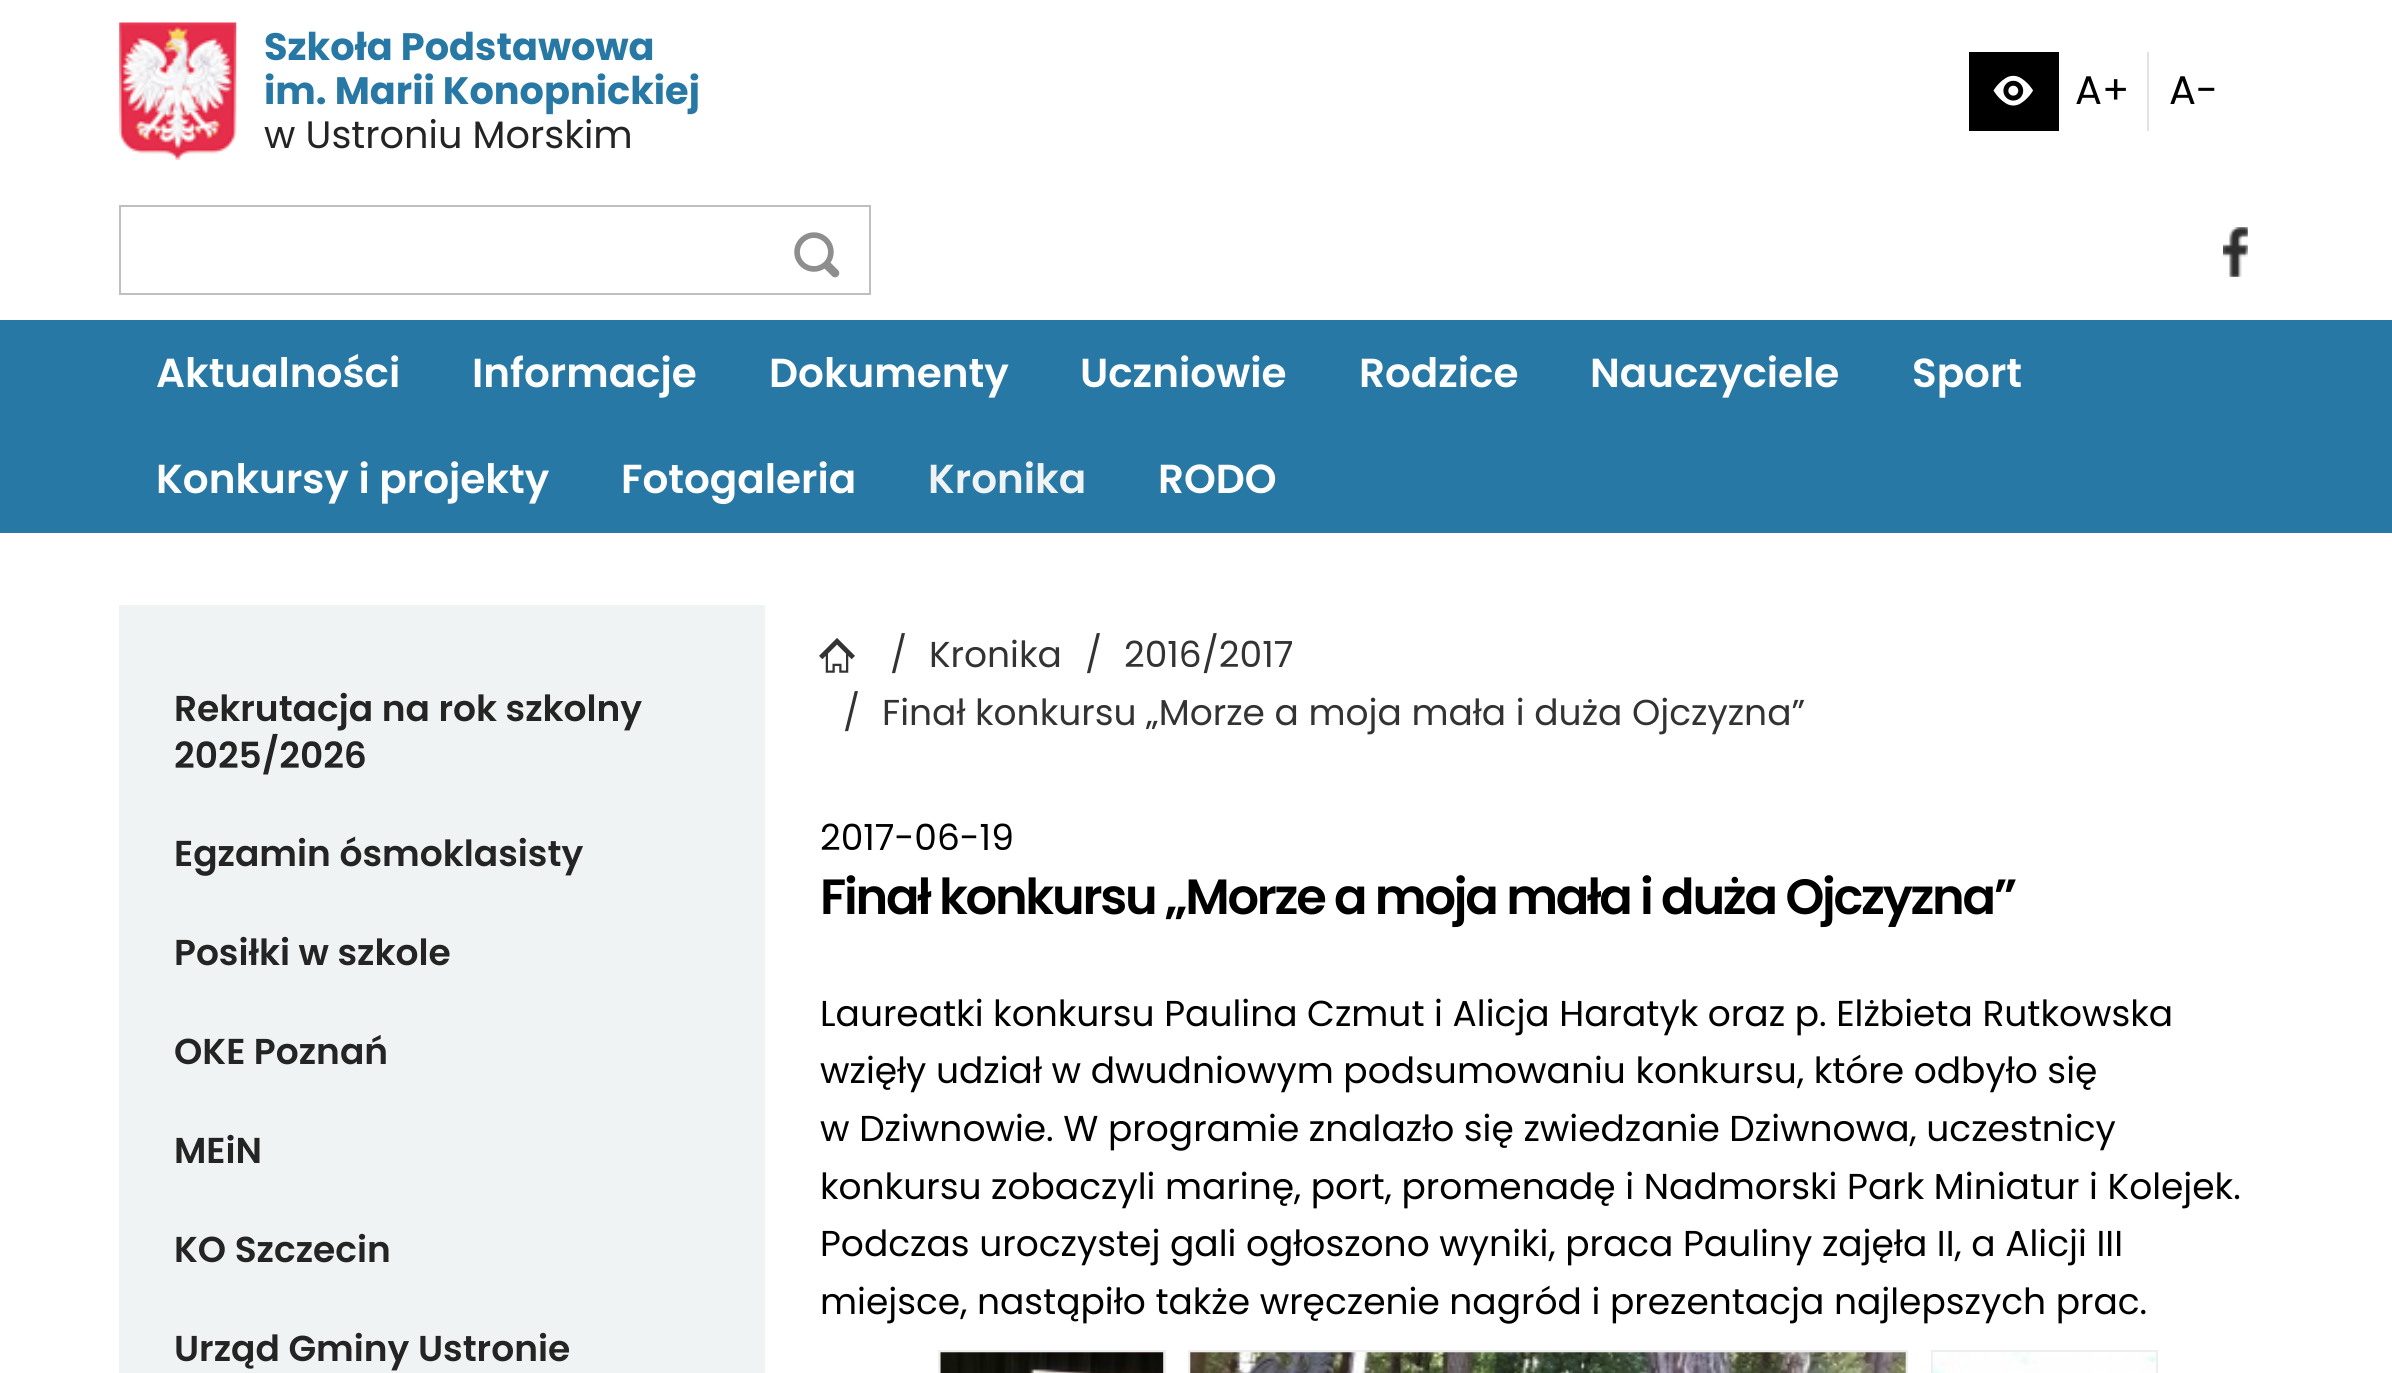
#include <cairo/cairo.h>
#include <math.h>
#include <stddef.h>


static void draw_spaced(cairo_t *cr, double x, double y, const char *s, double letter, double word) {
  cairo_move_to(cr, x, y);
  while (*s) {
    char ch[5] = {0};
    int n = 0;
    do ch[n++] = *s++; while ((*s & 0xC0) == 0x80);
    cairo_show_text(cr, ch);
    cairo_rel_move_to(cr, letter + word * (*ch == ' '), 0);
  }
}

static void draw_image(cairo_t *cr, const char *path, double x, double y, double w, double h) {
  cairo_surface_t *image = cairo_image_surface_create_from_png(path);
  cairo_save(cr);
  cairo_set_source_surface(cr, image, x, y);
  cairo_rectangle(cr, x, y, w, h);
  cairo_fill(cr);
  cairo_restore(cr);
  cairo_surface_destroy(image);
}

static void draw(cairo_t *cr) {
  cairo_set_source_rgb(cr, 1, 1, 1);
  cairo_paint(cr);
  draw_image(cr, "images/1.png", 119, 22, 118, 138);
  cairo_set_source_rgb(cr, 0, 0, 0);
  cairo_rectangle(cr, 1969, 52, 90, 79);
  cairo_fill(cr);
  draw_image(cr, "images/2.png", 1993, 75, 40, 31);
  cairo_set_source_rgb(cr, 226 / 255.0, 226 / 255.0, 226 / 255.0);
  cairo_rectangle(cr, 2147, 52, 2, 79);
  cairo_fill(cr);
  cairo_rectangle(cr, 120, 206, 750, 88);
  cairo_set_source_rgb(cr, 191 / 255.0, 191 / 255.0, 191 / 255.0);
  cairo_stroke(cr);
  draw_image(cr, "images/3.png", 794, 232, 46, 46);
  draw_image(cr, "images/4.png", 2223, 227, 25, 50);
  cairo_set_source_rgb(cr, 40 / 255.0, 120 / 255.0, 166 / 255.0);
  cairo_rectangle(cr, 0, 320, 2392, 213);
  cairo_fill(cr);
  cairo_set_source_rgb(cr, 240 / 255.0, 243 / 255.0, 244 / 255.0);
  cairo_rectangle(cr, 119, 605, 646, 768);
  cairo_fill(cr);
  draw_image(cr, "images/5.png", 819, 638, 36, 35);
  cairo_rectangle(cr, 939, 1351, 226, 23);
  cairo_set_source_rgb(cr, 238 / 255.0, 238 / 255.0, 238 / 255.0);
  cairo_stroke(cr);
  draw_image(cr, "images/6.png", 940, 1352, 224, 21);
  cairo_rectangle(cr, 1189, 1351, 718, 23);
  cairo_stroke(cr);
  draw_image(cr, "images/7.png", 1190, 1352, 716, 21);
  cairo_rectangle(cr, 1932, 1351, 225, 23);
  cairo_stroke(cr);
  draw_image(cr, "images/8.png", 1932, 1352, 224, 21);
  cairo_select_font_face(cr, "Poppins", CAIRO_FONT_SLANT_NORMAL, CAIRO_FONT_WEIGHT_BOLD);
  cairo_set_font_size(cr, 38.25);
  cairo_set_source_rgb(cr, 40 / 255.0, 120 / 255.0, 166 / 255.0);
  cairo_move_to(cr, 264, 60);
  cairo_show_text(cr, "Szkoła Podstawowa");
  cairo_move_to(cr, 264, 104);
  cairo_show_text(cr, "im. Marii Konopnickiej");
  cairo_select_font_face(cr, "Poppins", CAIRO_FONT_SLANT_NORMAL, CAIRO_FONT_WEIGHT_NORMAL);
  cairo_set_source_rgb(cr, 36 / 255.0, 36 / 255.0, 36 / 255.0);
  cairo_move_to(cr, 264, 148);
  cairo_show_text(cr, "w Ustroniu Morskim");
  cairo_set_font_size(cr, 40);
  cairo_set_source_rgb(cr, 0, 0, 0);
  cairo_move_to(cr, 2075, 104);
  cairo_show_text(cr, "A+");
  cairo_move_to(cr, 2169, 104);
  cairo_show_text(cr, "A-");
  cairo_select_font_face(cr, "Poppins SemiBold", CAIRO_FONT_SLANT_NORMAL, CAIRO_FONT_WEIGHT_NORMAL);
  cairo_set_font_size(cr, 40.5);
  cairo_set_source_rgb(cr, 1, 1, 1);
  cairo_move_to(cr, 156, 387);
  cairo_show_text(cr, "Aktualności");
  cairo_move_to(cr, 472, 387);
  cairo_show_text(cr, "Informacje");
  cairo_move_to(cr, 769, 387);
  cairo_show_text(cr, "Dokumenty");
  cairo_move_to(cr, 1080, 387);
  cairo_show_text(cr, "Uczniowie");
  cairo_move_to(cr, 1359, 387);
  cairo_show_text(cr, "Rodzice");
  cairo_move_to(cr, 1590, 387);
  cairo_show_text(cr, "Nauczyciele");
  cairo_move_to(cr, 1912, 387);
  cairo_show_text(cr, "Sport");
  cairo_move_to(cr, 156, 493);
  cairo_show_text(cr, "Konkursy i projekty");
  cairo_move_to(cr, 621, 493);
  cairo_show_text(cr, "Fotogaleria");
  cairo_set_source_rgb(cr, 240 / 255.0, 243 / 255.0, 244 / 255.0);
  cairo_move_to(cr, 928, 493);
  cairo_show_text(cr, "Kronika");
  cairo_set_source_rgb(cr, 1, 1, 1);
  cairo_move_to(cr, 1158, 493);
  cairo_show_text(cr, "RODO");
  cairo_set_font_size(cr, 36);
  cairo_set_source_rgb(cr, 36 / 255.0, 36 / 255.0, 36 / 255.0);
  cairo_move_to(cr, 174, 721);
  cairo_show_text(cr, "Rekrutacja na rok szkolny");
  cairo_move_to(cr, 174, 768);
  cairo_show_text(cr, "2025/2026");
  cairo_move_to(cr, 174, 866);
  cairo_show_text(cr, "Egzamin ósmoklasisty");
  cairo_move_to(cr, 174, 965);
  cairo_show_text(cr, "Posiłki w szkole");
  cairo_move_to(cr, 174, 1064);
  cairo_show_text(cr, "OKE Poznań");
  cairo_move_to(cr, 174, 1163);
  cairo_show_text(cr, "MEiN");
  cairo_move_to(cr, 174, 1262);
  cairo_show_text(cr, "KO Szczecin");
  cairo_move_to(cr, 174, 1361);
  cairo_show_text(cr, "Urząd Gminy Ustronie");
  cairo_select_font_face(cr, "Poppins", CAIRO_FONT_SLANT_NORMAL, CAIRO_FONT_WEIGHT_NORMAL);
  cairo_set_source_rgb(cr, 51 / 255.0, 51 / 255.0, 51 / 255.0);
  cairo_move_to(cr, 890, 667);
  cairo_show_text(cr, "/");
  cairo_move_to(cr, 929, 667);
  cairo_show_text(cr, "Kronika");
  cairo_move_to(cr, 1085, 667);
  cairo_show_text(cr, "/");
  cairo_move_to(cr, 1124, 667);
  cairo_show_text(cr, "2016/2017");
  cairo_move_to(cr, 843, 725);
  cairo_show_text(cr, "/");
  cairo_move_to(cr, 882, 725);
  cairo_show_text(cr, "Finał konkursu „Morze a moja mała i duża Ojczyzna”");
  cairo_set_source_rgb(cr, 0, 0, 0);
  cairo_move_to(cr, 820, 850);
  cairo_show_text(cr, "2017-06-19");
  cairo_select_font_face(cr, "Poppins SemiBold", CAIRO_FONT_SLANT_NORMAL, CAIRO_FONT_WEIGHT_NORMAL);
  cairo_set_font_size(cr, 49.5);
  draw_spaced(cr, 820, 914, "Finał konkursu „Morze a moja mała i duża Ojczyzna”", -2.25, 0);
  cairo_select_font_face(cr, "Poppins", CAIRO_FONT_SLANT_NORMAL, CAIRO_FONT_WEIGHT_NORMAL);
  cairo_set_font_size(cr, 36);
  cairo_move_to(cr, 820, 1026);
  cairo_show_text(cr, "Laureatki konkursu Paulina Czmut i Alicja Haratyk oraz p. Elżbieta Rutkowska");
  cairo_move_to(cr, 820, 1083);
  cairo_show_text(cr, "wzięły udział w dwudniowym podsumowaniu konkursu, które odbyło się");
  cairo_move_to(cr, 820, 1141);
  cairo_show_text(cr, "w Dziwnowie. W programie znalazło się zwiedzanie Dziwnowa, uczestnicy");
  cairo_move_to(cr, 820, 1199);
  cairo_show_text(cr, "konkursu zobaczyli marinę, port, promenadę i Nadmorski Park Miniatur i Kolejek.");
  cairo_move_to(cr, 820, 1256);
  cairo_show_text(cr, "Podczas uroczystej gali ogłoszono wyniki, praca Pauliny zajęła II, a Alicji III");
  cairo_move_to(cr, 820, 1314);
  cairo_show_text(cr, "miejsce, nastąpiło także wręczenie nagród i prezentacja najlepszych prac.");
}

int main(void) {
  cairo_surface_t *surface = cairo_image_surface_create(CAIRO_FORMAT_RGB24, 2392, 1373);
  cairo_t *cr = cairo_create(surface);
  cairo_font_options_t *options = cairo_font_options_create();
  cairo_font_options_set_hint_metrics(options, CAIRO_HINT_METRICS_OFF);
  cairo_font_options_set_hint_style(options, CAIRO_HINT_STYLE_NONE);
  cairo_set_font_options(cr, options);
  cairo_set_miter_limit(cr, 4);
  draw(cr);
  cairo_surface_write_to_png(surface, "out.png");
  cairo_font_options_destroy(options);
  cairo_destroy(cr);
  cairo_surface_destroy(surface);
  return 0;
}
